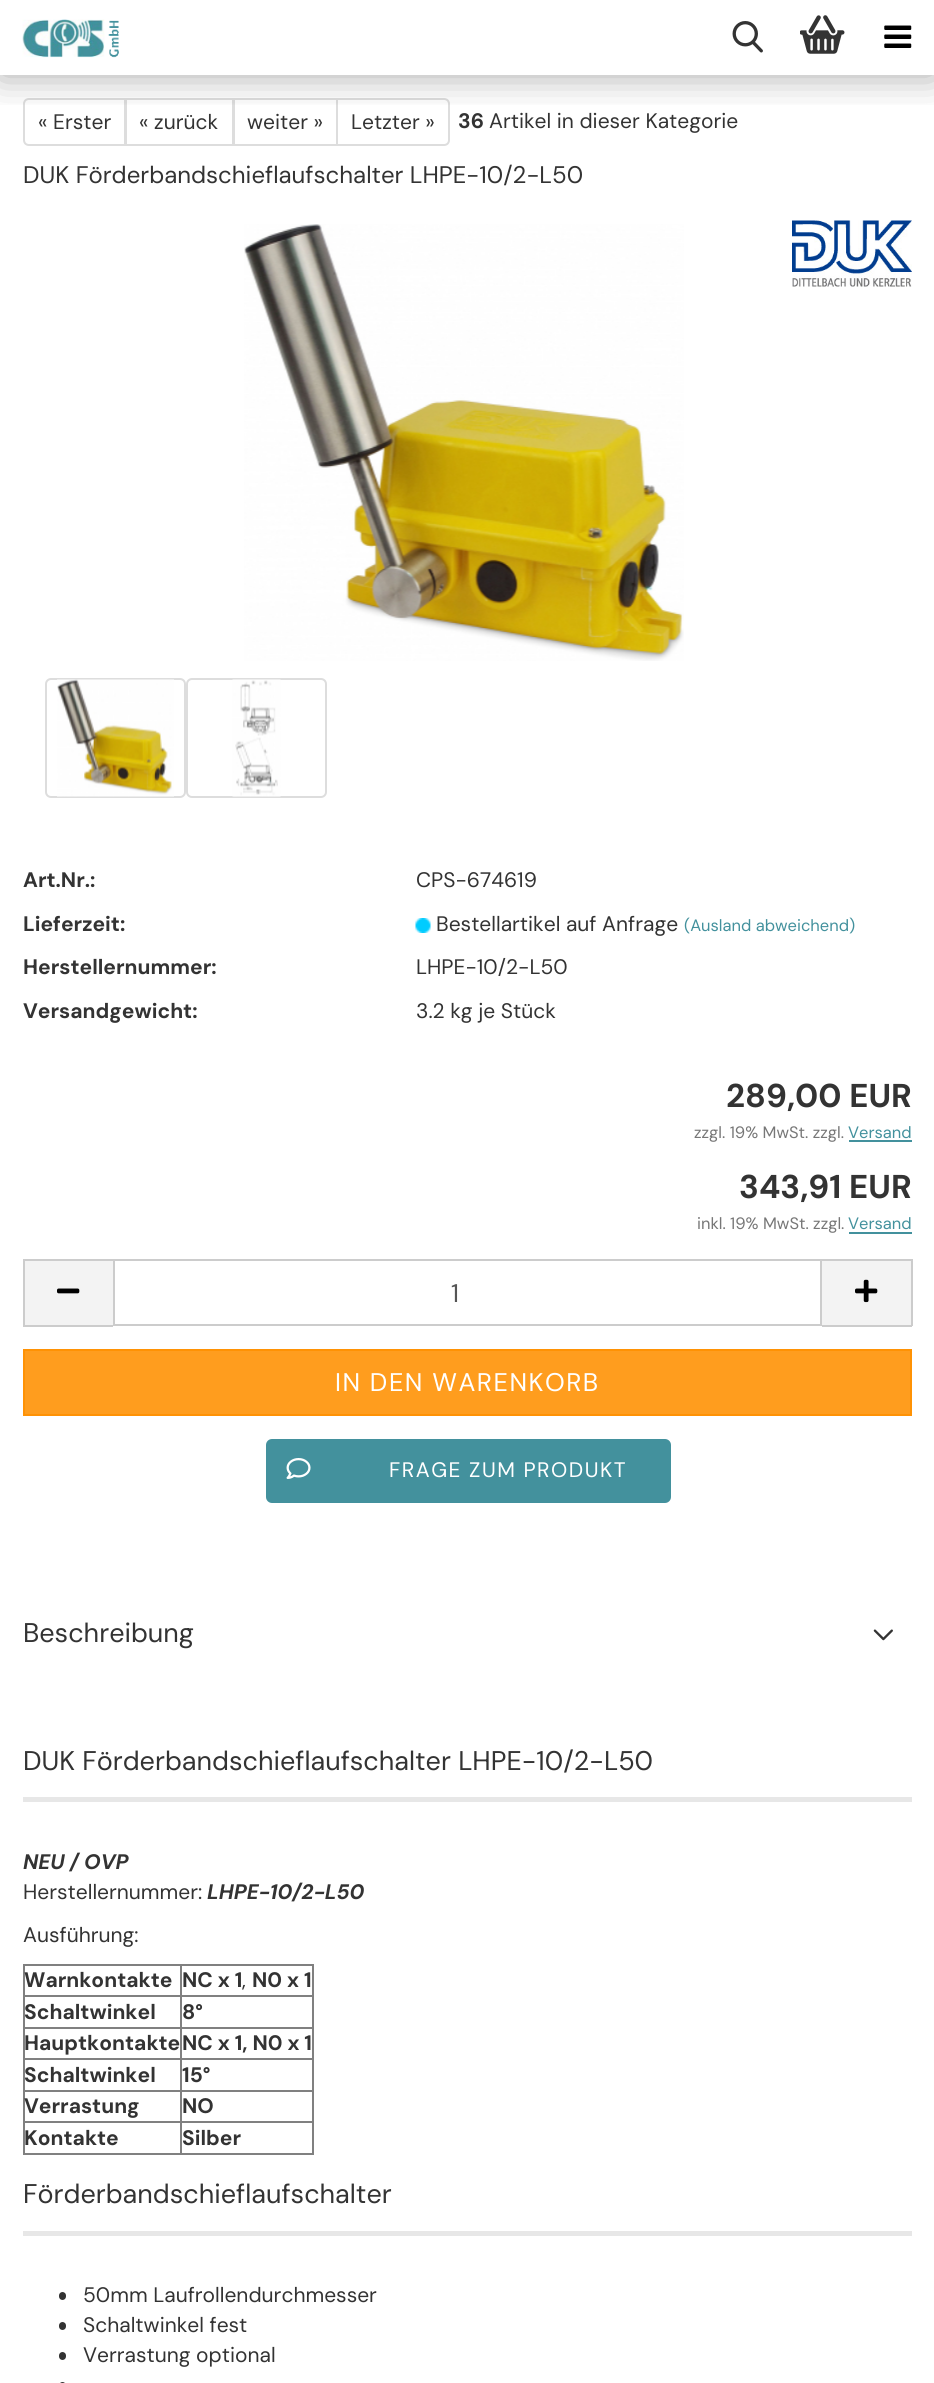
#include <cairo/cairo.h>
#include <math.h>
#include <stddef.h>


static void draw_spaced(cairo_t *cr, double x, double y, const char *s, double letter, double word) {
  cairo_move_to(cr, x, y);
  while (*s) {
    char ch[5] = {0};
    int n = 0;
    do ch[n++] = *s++; while ((*s & 0xC0) == 0x80);
    cairo_show_text(cr, ch);
    cairo_rel_move_to(cr, letter + word * (*ch == ' '), 0);
  }
}

static void rounded_rect(cairo_t *cr, double x, double y, double w, double h, double r) {
  cairo_new_sub_path(cr);
  cairo_arc(cr, x + w - r, y + h - r, r, 0, M_PI / 2);
  cairo_arc(cr, x + r, y + h - r, r, M_PI / 2, M_PI);
  cairo_arc(cr, x + r, y + r, r, M_PI, 1.5 * M_PI);
  cairo_arc(cr, x + w - r, y + r, r, 1.5 * M_PI, 2 * M_PI);
  cairo_close_path(cr);
}

static void draw_shadow(cairo_t *cr, double x, double y, double w, double h, double r, double blur, double alpha) {
  cairo_push_group_with_content(cr, CAIRO_CONTENT_ALPHA);
  cairo_set_operator(cr, CAIRO_OPERATOR_SOURCE);
  for (int i = 15; i >= -15 && fmin(w, h) + blur * i / 3 > 0; i -= 2) {
    double e = blur * i / 6;
    cairo_set_source_rgba(cr, 0, 0, 0, alpha * erfc((i - 1) / 8.5) / 2);
    rounded_rect(cr, x - e, y - e, w + 2 * e, h + 2 * e, fmax(0, fmin(r + e + blur * .6, fmin(w, h) / 2 + e)));
    cairo_fill(cr);
  }
  cairo_pattern_t *soft = cairo_pop_group(cr);
  cairo_mask(cr, soft);
  cairo_pattern_destroy(soft);
}

static void draw_image(cairo_t *cr, const char *path, double x, double y, double w, double h) {
  cairo_surface_t *image = cairo_image_surface_create_from_png(path);
  cairo_save(cr);
  cairo_set_source_surface(cr, image, x, y);
  cairo_rectangle(cr, x, y, w, h);
  cairo_fill(cr);
  cairo_restore(cr);
  cairo_surface_destroy(image);
}

static void draw(cairo_t *cr) {
  cairo_set_source_rgb(cr, 1, 1, 1);
  cairo_paint(cr);
  cairo_new_path(cr);
  cairo_move_to(cr, 29, 99);
  cairo_line_to(cr, 125, 99);
  cairo_line_to(cr, 125, 145);
  cairo_line_to(cr, 29, 145);
  cairo_curve_to(cr, 26, 145, 24, 143, 24, 140);
  cairo_line_to(cr, 24, 104);
  cairo_curve_to(cr, 24, 101, 26, 99, 29, 99);
  cairo_close_path(cr);
  cairo_set_source_rgb(cr, 221 / 255.0, 221 / 255.0, 221 / 255.0);
  cairo_stroke(cr);
  cairo_rectangle(cr, 126, 99, 107, 46);
  cairo_stroke(cr);
  cairo_rectangle(cr, 234, 99, 103, 46);
  cairo_stroke(cr);
  cairo_set_source_rgb(cr, 1, 1, 1);
  cairo_new_path(cr);
  cairo_move_to(cr, 337, 99);
  cairo_line_to(cr, 444, 99);
  cairo_curve_to(cr, 447, 99, 449, 101, 449, 104);
  cairo_line_to(cr, 449, 140);
  cairo_curve_to(cr, 449, 143, 447, 145, 444, 145);
  cairo_line_to(cr, 337, 145);
  cairo_close_path(cr);
  cairo_fill_preserve(cr);
  cairo_set_source_rgb(cr, 221 / 255.0, 221 / 255.0, 221 / 255.0);
  cairo_stroke(cr);
  cairo_save(cr);
  cairo_rectangle(cr, 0, 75, 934, 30);
  cairo_clip(cr);
  cairo_set_source_rgb(cr, 0, 0, 0);
  draw_shadow(cr, 0, 0, 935, 75, 0, 19, 0.35);
  cairo_restore(cr);
  draw_image(cr, "images/1.png", 22, 19, 97, 39);
  draw_image(cr, "images/2.png", 732, 21, 31, 32);
  draw_image(cr, "images/3.png", 800, 15, 45, 39);
  draw_image(cr, "images/4.png", 884, 25, 28, 23);
  draw_image(cr, "images/5.png", 244, 224, 440, 437);
  rounded_rect(cr, 46, 679, 139, 118, 5);
  cairo_stroke(cr);
  draw_image(cr, "images/6.png", 57, 679, 117, 118);
  rounded_rect(cr, 187, 679, 139, 118, 5);
  cairo_stroke(cr);
  draw_image(cr, "images/7.png", 232, 679, 49, 118);
  draw_image(cr, "images/8.png", 792, 220, 120, 67);
  draw_image(cr, "images/9.png", 415, 918, 16, 15);
  cairo_set_source_rgb(cr, 67 / 255.0, 145 / 255.0, 157 / 255.0);
  cairo_rectangle(cr, 849, 1140, 63, 2);
  cairo_fill(cr);
  cairo_rectangle(cr, 849, 1232, 63, 2);
  cairo_fill(cr);
  cairo_set_source_rgb(cr, 243 / 255.0, 243 / 255.0, 243 / 255.0);
  cairo_rectangle(cr, 25, 1261, 88, 64);
  cairo_fill(cr);
  cairo_set_source_rgb(cr, 204 / 255.0, 204 / 255.0, 204 / 255.0);
  cairo_rectangle(cr, 23, 1259, 90, 2);
  cairo_fill(cr);
  cairo_rectangle(cr, 23, 1325, 90, 2);
  cairo_fill(cr);
  cairo_rectangle(cr, 23, 1259, 2, 67);
  cairo_fill(cr);
  draw_image(cr, "images/10.png", 57, 1288, 23, 6);
  cairo_rectangle(cr, 114, 1260, 707, 65);
  cairo_stroke(cr);
  cairo_set_source_rgb(cr, 243 / 255.0, 243 / 255.0, 243 / 255.0);
  cairo_rectangle(cr, 822, 1261, 89, 64);
  cairo_fill(cr);
  cairo_set_source_rgb(cr, 204 / 255.0, 204 / 255.0, 204 / 255.0);
  cairo_rectangle(cr, 822, 1259, 90, 2);
  cairo_fill(cr);
  cairo_rectangle(cr, 911, 1259, 2, 67);
  cairo_fill(cr);
  cairo_rectangle(cr, 822, 1325, 90, 2);
  cairo_fill(cr);
  draw_image(cr, "images/11.png", 855, 1279, 23, 24);
  cairo_set_source_rgb(cr, 1, 157 / 255.0, 30 / 255.0);
  cairo_rectangle(cr, 24, 1350, 887, 65);
  cairo_fill_preserve(cr);
  cairo_set_source_rgb(cr, 1, 146 / 255.0, 4 / 255.0);
  cairo_stroke(cr);
  cairo_set_source_rgb(cr, 67 / 255.0, 145 / 255.0, 157 / 255.0);
  rounded_rect(cr, 267, 1440, 403, 62, 5);
  cairo_fill_preserve(cr);
  cairo_stroke(cr);
  draw_image(cr, "images/12.png", 286, 1458, 25, 21);
  draw_image(cr, "images/13.png", 873, 1629, 20, 12);
  cairo_set_source_rgb(cr, 231 / 255.0, 231 / 255.0, 231 / 255.0);
  cairo_rectangle(cr, 23, 1797, 889, 5);
  cairo_fill(cr);
  cairo_set_source_rgb(cr, 128 / 255.0, 128 / 255.0, 128 / 255.0);
  cairo_rectangle(cr, 23, 1964, 291, 2);
  cairo_fill(cr);
  cairo_rectangle(cr, 312, 1964, 2, 190);
  cairo_fill(cr);
  cairo_rectangle(cr, 23, 2153, 291, 2);
  cairo_fill(cr);
  cairo_rectangle(cr, 23, 1964, 2, 190);
  cairo_fill(cr);
  cairo_rectangle(cr, 180, 1995, 134, 2);
  cairo_fill(cr);
  cairo_rectangle(cr, 180, 2027, 134, 2);
  cairo_fill(cr);
  cairo_rectangle(cr, 180, 2058, 134, 2);
  cairo_fill(cr);
  cairo_rectangle(cr, 180, 2090, 134, 2);
  cairo_fill(cr);
  cairo_rectangle(cr, 180, 2121, 134, 2);
  cairo_fill(cr);
  cairo_rectangle(cr, 180, 2121, 2, 33);
  cairo_fill(cr);
  cairo_rectangle(cr, 23, 2121, 159, 2);
  cairo_fill(cr);
  cairo_rectangle(cr, 180, 2090, 2, 33);
  cairo_fill(cr);
  cairo_rectangle(cr, 23, 2090, 159, 2);
  cairo_fill(cr);
  cairo_rectangle(cr, 180, 2058, 2, 33);
  cairo_fill(cr);
  cairo_rectangle(cr, 23, 2058, 159, 2);
  cairo_fill(cr);
  cairo_rectangle(cr, 180, 2027, 2, 33);
  cairo_fill(cr);
  cairo_rectangle(cr, 23, 2027, 159, 2);
  cairo_fill(cr);
  cairo_rectangle(cr, 180, 1995, 2, 33);
  cairo_fill(cr);
  cairo_rectangle(cr, 23, 1995, 159, 2);
  cairo_fill(cr);
  cairo_rectangle(cr, 180, 1964, 2, 33);
  cairo_fill(cr);
  cairo_set_source_rgb(cr, 231 / 255.0, 231 / 255.0, 231 / 255.0);
  cairo_rectangle(cr, 23, 2231, 889, 5);
  cairo_fill(cr);
  cairo_set_source_rgb(cr, 51 / 255.0, 51 / 255.0, 51 / 255.0);
  rounded_rect(cr, 59, 2292, 7, 8, 3.5);
  cairo_fill(cr);
  rounded_rect(cr, 59, 2322, 7, 8, 3.5);
  cairo_fill(cr);
  rounded_rect(cr, 59, 2352, 7, 8, 3.5);
  cairo_fill(cr);
  rounded_rect(cr, 59, 2382, 7, 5, 3.5);
  cairo_fill(cr);
  cairo_select_font_face(cr, "DM Sans", CAIRO_FONT_SLANT_NORMAL, CAIRO_FONT_WEIGHT_NORMAL);
  cairo_set_font_size(cr, 21);
  cairo_move_to(cr, 38, 129);
  cairo_show_text(cr, "« Erster");
  cairo_move_to(cr, 139, 129);
  cairo_show_text(cr, "« zurück");
  cairo_move_to(cr, 247, 129);
  cairo_show_text(cr, "weiter »");
  cairo_move_to(cr, 351, 129);
  cairo_show_text(cr, "Letzter »");
  cairo_select_font_face(cr, "DM Sans", CAIRO_FONT_SLANT_NORMAL, CAIRO_FONT_WEIGHT_BOLD);
  cairo_move_to(cr, 458, 128);
  cairo_show_text(cr, "36");
  cairo_select_font_face(cr, "DM Sans", CAIRO_FONT_SLANT_NORMAL, CAIRO_FONT_WEIGHT_NORMAL);
  cairo_move_to(cr, 489, 128);
  cairo_show_text(cr, "Artikel in dieser Kategorie");
  cairo_set_font_size(cr, 24);
  cairo_move_to(cr, 23, 183);
  cairo_show_text(cr, "DUK Förderbandschieflaufschalter LHPE-10/2-L50");
  cairo_select_font_face(cr, "DM Sans", CAIRO_FONT_SLANT_NORMAL, CAIRO_FONT_WEIGHT_BOLD);
  cairo_set_font_size(cr, 21);
  cairo_move_to(cr, 23, 887);
  cairo_show_text(cr, "Art.Nr.:");
  cairo_select_font_face(cr, "DM Sans", CAIRO_FONT_SLANT_NORMAL, CAIRO_FONT_WEIGHT_NORMAL);
  cairo_move_to(cr, 416, 887);
  cairo_show_text(cr, "CPS-674619");
  cairo_select_font_face(cr, "DM Sans", CAIRO_FONT_SLANT_NORMAL, CAIRO_FONT_WEIGHT_BOLD);
  cairo_move_to(cr, 23, 931);
  cairo_show_text(cr, "Lieferzeit:");
  cairo_select_font_face(cr, "DM Sans", CAIRO_FONT_SLANT_NORMAL, CAIRO_FONT_WEIGHT_NORMAL);
  cairo_move_to(cr, 436, 931);
  cairo_show_text(cr, "Bestellartikel auf Anfrage");
  cairo_set_font_size(cr, 16.5);
  cairo_set_source_rgb(cr, 67 / 255.0, 145 / 255.0, 157 / 255.0);
  cairo_move_to(cr, 684, 931);
  cairo_show_text(cr, "(Ausland abweichend)");
  cairo_select_font_face(cr, "DM Sans", CAIRO_FONT_SLANT_NORMAL, CAIRO_FONT_WEIGHT_BOLD);
  cairo_set_font_size(cr, 21);
  cairo_set_source_rgb(cr, 51 / 255.0, 51 / 255.0, 51 / 255.0);
  cairo_move_to(cr, 23, 974);
  cairo_show_text(cr, "Herstellernummer:");
  cairo_select_font_face(cr, "DM Sans", CAIRO_FONT_SLANT_NORMAL, CAIRO_FONT_WEIGHT_NORMAL);
  cairo_move_to(cr, 416, 974);
  cairo_show_text(cr, "LHPE-10/2-L50");
  cairo_select_font_face(cr, "DM Sans", CAIRO_FONT_SLANT_NORMAL, CAIRO_FONT_WEIGHT_BOLD);
  cairo_move_to(cr, 23, 1018);
  cairo_show_text(cr, "Versandgewicht:");
  cairo_select_font_face(cr, "DM Sans", CAIRO_FONT_SLANT_NORMAL, CAIRO_FONT_WEIGHT_NORMAL);
  cairo_move_to(cr, 416, 1018);
  cairo_show_text(cr, "3.2 kg je Stück");
  cairo_select_font_face(cr, "DM Sans", CAIRO_FONT_SLANT_NORMAL, CAIRO_FONT_WEIGHT_BOLD);
  cairo_set_font_size(cr, 33);
  cairo_move_to(cr, 726, 1107);
  cairo_show_text(cr, "289,00 EUR");
  cairo_select_font_face(cr, "DM Sans", CAIRO_FONT_SLANT_NORMAL, CAIRO_FONT_WEIGHT_NORMAL);
  cairo_set_font_size(cr, 16.5);
  cairo_set_source_rgb(cr, 119 / 255.0, 119 / 255.0, 119 / 255.0);
  cairo_move_to(cr, 694, 1138);
  cairo_show_text(cr, "zzgl. 19% MwSt. zzgl.");
  cairo_set_source_rgb(cr, 67 / 255.0, 145 / 255.0, 157 / 255.0);
  cairo_move_to(cr, 848, 1138);
  cairo_show_text(cr, "Versand");
  cairo_select_font_face(cr, "DM Sans", CAIRO_FONT_SLANT_NORMAL, CAIRO_FONT_WEIGHT_BOLD);
  cairo_set_font_size(cr, 33);
  cairo_set_source_rgb(cr, 51 / 255.0, 51 / 255.0, 51 / 255.0);
  cairo_move_to(cr, 739, 1198);
  cairo_show_text(cr, "343,91 EUR");
  cairo_select_font_face(cr, "DM Sans", CAIRO_FONT_SLANT_NORMAL, CAIRO_FONT_WEIGHT_NORMAL);
  cairo_set_font_size(cr, 16.5);
  cairo_set_source_rgb(cr, 119 / 255.0, 119 / 255.0, 119 / 255.0);
  cairo_move_to(cr, 697, 1229);
  cairo_show_text(cr, "inkl. 19% MwSt. zzgl.");
  cairo_set_source_rgb(cr, 67 / 255.0, 145 / 255.0, 157 / 255.0);
  cairo_move_to(cr, 848, 1229);
  cairo_show_text(cr, "Versand");
  cairo_set_font_size(cr, 25.5);
  cairo_set_source_rgb(cr, 85 / 255.0, 85 / 255.0, 85 / 255.0);
  cairo_move_to(cr, 451, 1302);
  cairo_show_text(cr, "1");
  cairo_set_source_rgb(cr, 1, 1, 1);
  draw_spaced(cr, 335, 1391, "IN DEN WARENKORB", 1.5, 0);
  cairo_set_font_size(cr, 21);
  draw_spaced(cr, 389, 1477, "FRAGE ZUM PRODUKT", 1.5, 0);
  cairo_set_font_size(cr, 27);
  cairo_set_source_rgb(cr, 51 / 255.0, 51 / 255.0, 51 / 255.0);
  cairo_move_to(cr, 23, 1642);
  cairo_show_text(cr, "Beschreibung");
  cairo_move_to(cr, 23, 1770);
  cairo_show_text(cr, "DUK Förderbandschieflaufschalter LHPE-10/2-L50");
  cairo_select_font_face(cr, "DM Sans", CAIRO_FONT_SLANT_ITALIC, CAIRO_FONT_WEIGHT_BOLD);
  cairo_set_font_size(cr, 21);
  cairo_move_to(cr, 23, 1869);
  cairo_show_text(cr, "NEU / OVP");
  cairo_select_font_face(cr, "DM Sans", CAIRO_FONT_SLANT_NORMAL, CAIRO_FONT_WEIGHT_NORMAL);
  cairo_move_to(cr, 23, 1899);
  cairo_show_text(cr, "Herstellernummer:");
  cairo_select_font_face(cr, "DM Sans", CAIRO_FONT_SLANT_ITALIC, CAIRO_FONT_WEIGHT_BOLD);
  cairo_move_to(cr, 207, 1899);
  cairo_show_text(cr, "LHPE-10/2-L50");
  cairo_select_font_face(cr, "DM Sans", CAIRO_FONT_SLANT_NORMAL, CAIRO_FONT_WEIGHT_NORMAL);
  cairo_move_to(cr, 23, 1942);
  cairo_show_text(cr, "Ausführung:");
  cairo_select_font_face(cr, "DM Sans", CAIRO_FONT_SLANT_NORMAL, CAIRO_FONT_WEIGHT_BOLD);
  cairo_move_to(cr, 24, 1987);
  cairo_show_text(cr, "Warnkontakte");
  cairo_move_to(cr, 182, 1987);
  cairo_show_text(cr, "NC x 1");
  cairo_select_font_face(cr, "DM Sans", CAIRO_FONT_SLANT_NORMAL, CAIRO_FONT_WEIGHT_NORMAL);
  cairo_move_to(cr, 242, 1987);
  cairo_show_text(cr, ",");
  cairo_select_font_face(cr, "DM Sans", CAIRO_FONT_SLANT_NORMAL, CAIRO_FONT_WEIGHT_BOLD);
  cairo_move_to(cr, 252, 1987);
  cairo_show_text(cr, "N0 x 1");
  cairo_move_to(cr, 24, 2019);
  cairo_show_text(cr, "Schaltwinkel");
  cairo_move_to(cr, 182, 2019);
  cairo_show_text(cr, "8°");
  cairo_move_to(cr, 24, 2050);
  cairo_show_text(cr, "Hauptkontakte");
  cairo_move_to(cr, 182, 2050);
  cairo_show_text(cr, "NC x 1, N0 x 1");
  cairo_move_to(cr, 24, 2082);
  cairo_show_text(cr, "Schaltwinkel");
  cairo_move_to(cr, 182, 2082);
  cairo_show_text(cr, "15°");
  cairo_move_to(cr, 24, 2113);
  cairo_show_text(cr, "Verrastung");
  cairo_move_to(cr, 182, 2113);
  cairo_show_text(cr, "NO");
  cairo_move_to(cr, 24, 2145);
  cairo_show_text(cr, "Kontakte");
  cairo_move_to(cr, 182, 2145);
  cairo_show_text(cr, "Silber");
  cairo_select_font_face(cr, "DM Sans", CAIRO_FONT_SLANT_NORMAL, CAIRO_FONT_WEIGHT_NORMAL);
  cairo_set_font_size(cr, 27);
  cairo_move_to(cr, 23, 2203);
  cairo_show_text(cr, "Förderbandschieflaufschalter");
  cairo_set_font_size(cr, 21);
  cairo_move_to(cr, 83, 2302);
  cairo_show_text(cr, "50mm Laufrollendurchmesser");
  cairo_move_to(cr, 83, 2332);
  cairo_show_text(cr, "Schaltwinkel fest");
  cairo_move_to(cr, 83, 2362);
  cairo_show_text(cr, "Verrastung optional");
}

int main(void) {
  cairo_surface_t *surface = cairo_image_surface_create(CAIRO_FORMAT_RGB24, 934, 2383);
  cairo_t *cr = cairo_create(surface);
  cairo_font_options_t *options = cairo_font_options_create();
  cairo_font_options_set_hint_metrics(options, CAIRO_HINT_METRICS_OFF);
  cairo_font_options_set_hint_style(options, CAIRO_HINT_STYLE_NONE);
  cairo_set_font_options(cr, options);
  cairo_set_miter_limit(cr, 4);
  draw(cr);
  cairo_surface_write_to_png(surface, "out.png");
  cairo_font_options_destroy(options);
  cairo_destroy(cr);
  cairo_surface_destroy(surface);
  return 0;
}
